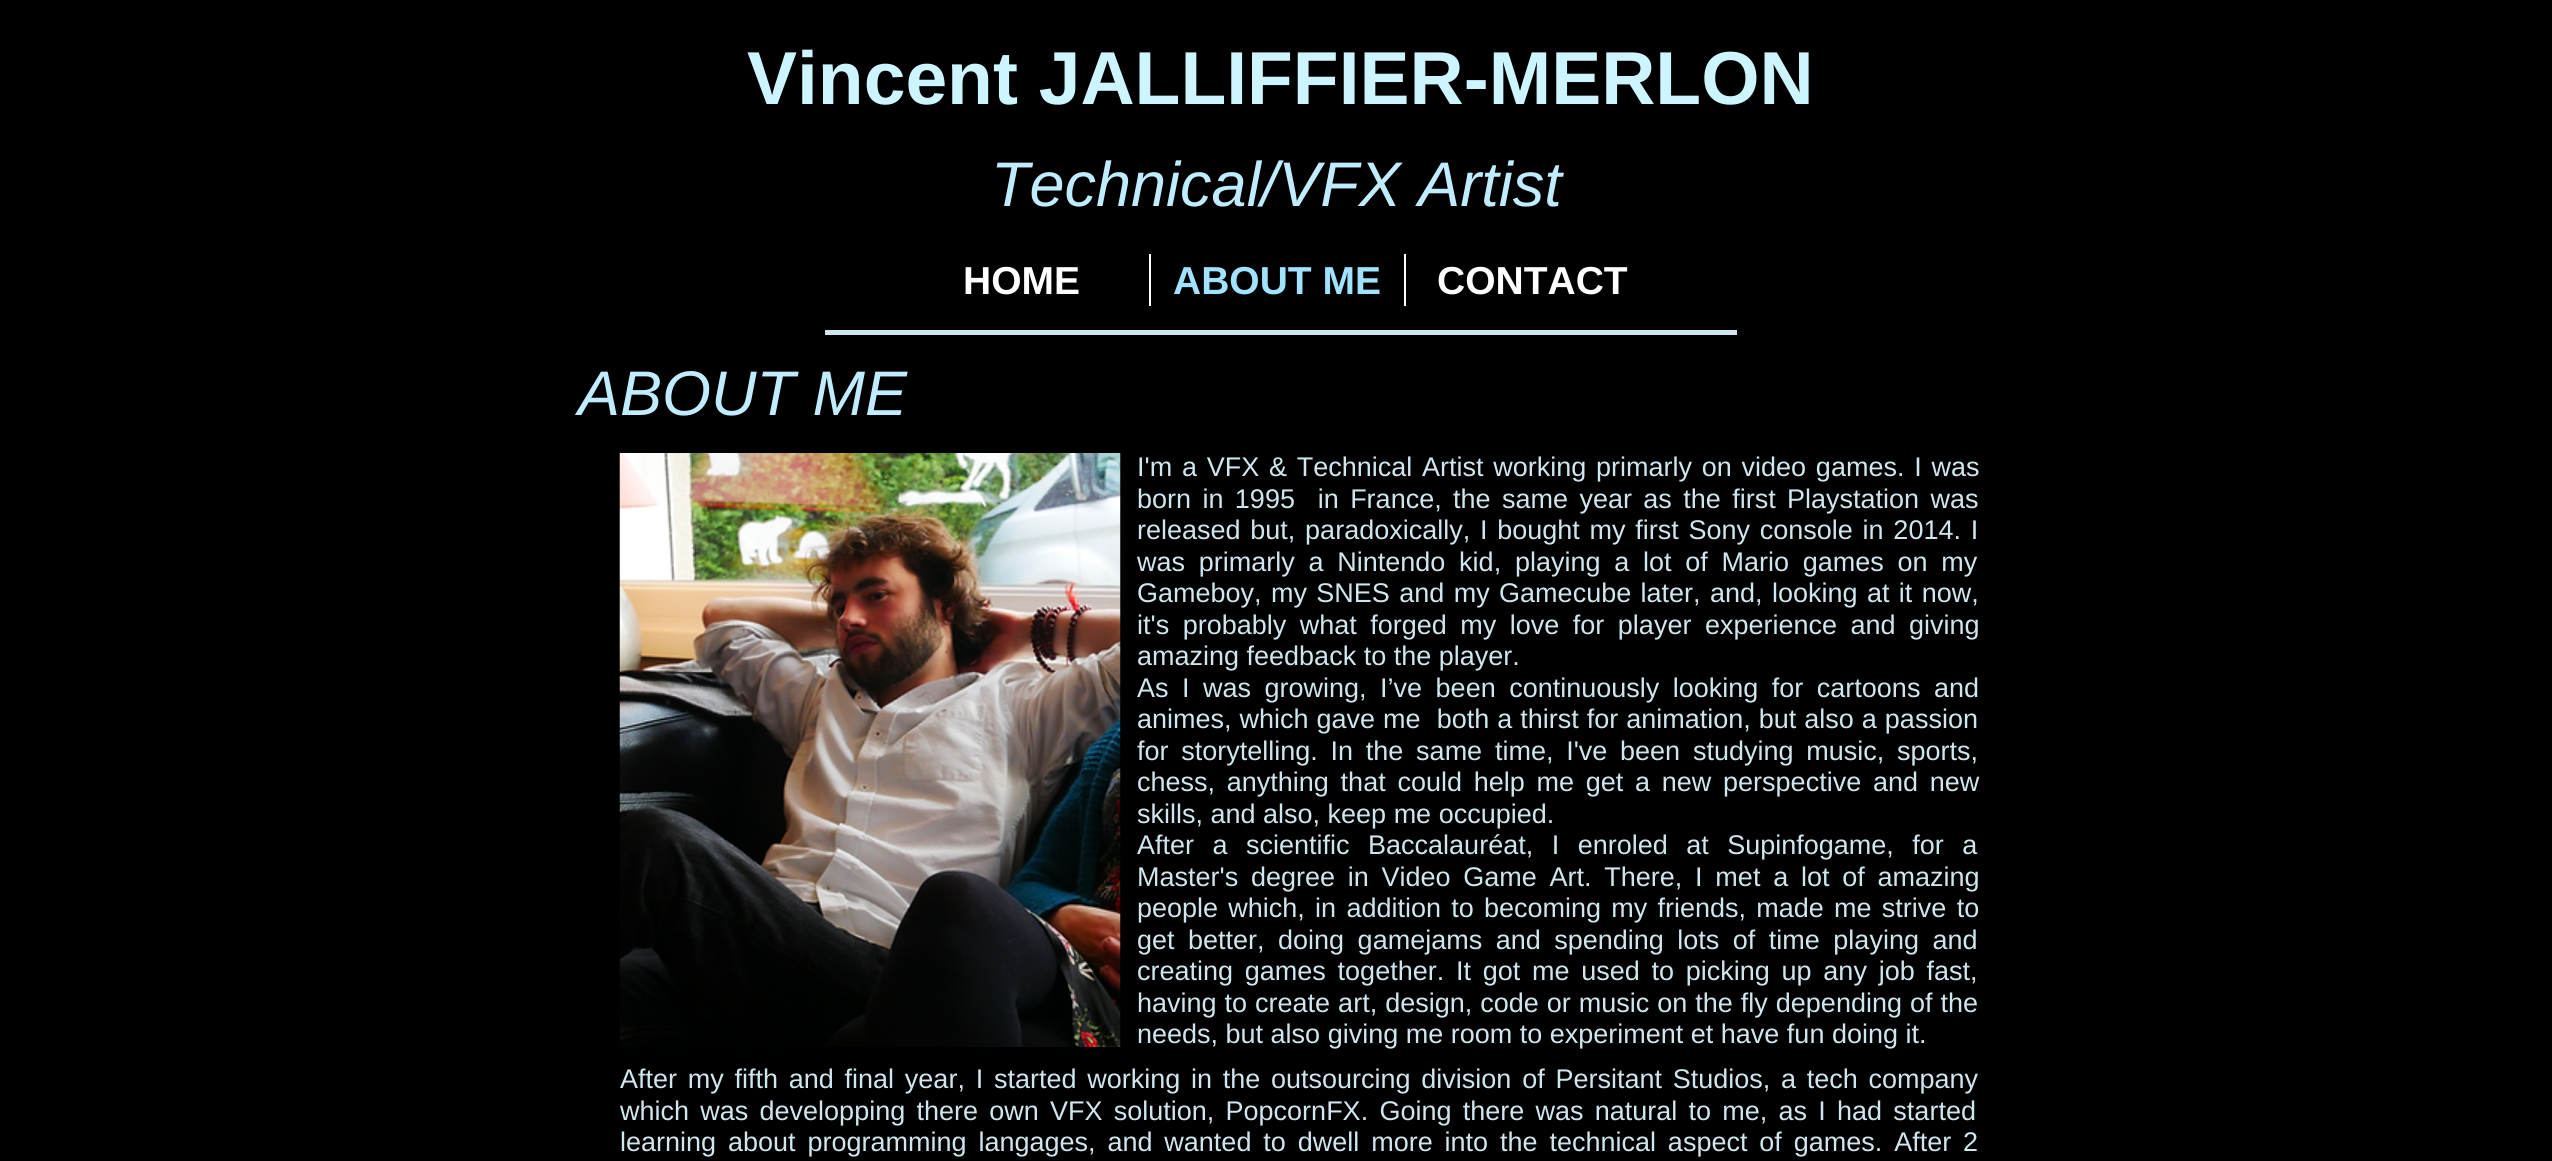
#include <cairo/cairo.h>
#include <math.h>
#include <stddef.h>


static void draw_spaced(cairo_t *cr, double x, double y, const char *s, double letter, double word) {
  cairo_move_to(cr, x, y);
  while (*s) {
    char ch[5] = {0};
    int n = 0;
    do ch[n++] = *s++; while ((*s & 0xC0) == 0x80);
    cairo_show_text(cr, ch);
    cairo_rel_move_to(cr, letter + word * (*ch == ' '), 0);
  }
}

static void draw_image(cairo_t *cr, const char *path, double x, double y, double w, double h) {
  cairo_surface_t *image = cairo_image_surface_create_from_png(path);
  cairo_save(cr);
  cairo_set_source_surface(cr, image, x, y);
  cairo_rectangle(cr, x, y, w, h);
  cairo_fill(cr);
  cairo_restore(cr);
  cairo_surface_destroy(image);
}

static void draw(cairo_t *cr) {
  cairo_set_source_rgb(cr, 0, 0, 0);
  cairo_paint(cr);
  cairo_set_source_rgb(cr, 1, 1, 1);
  cairo_rectangle(cr, 1149, 254, 2, 52);
  cairo_fill(cr);
  cairo_rectangle(cr, 1404, 254, 2, 52);
  cairo_fill(cr);
  cairo_set_source_rgb(cr, 208 / 255.0, 230 / 255.0, 239 / 255.0);
  cairo_rectangle(cr, 825, 330, 912, 5);
  cairo_fill(cr);
  draw_image(cr, "images/1.png", 619, 453, 502, 594);
  cairo_select_font_face(cr, "Liberation Sans", CAIRO_FONT_SLANT_NORMAL, CAIRO_FONT_WEIGHT_BOLD);
  cairo_set_font_size(cr, 75);
  cairo_set_source_rgb(cr, 204 / 255.0, 245 / 255.0, 1);
  cairo_move_to(cr, 747, 104);
  cairo_show_text(cr, "Vincent JALLIFFIER-MERLON");
  cairo_select_font_face(cr, "Liberation Sans", CAIRO_FONT_SLANT_ITALIC, CAIRO_FONT_WEIGHT_NORMAL);
  cairo_set_font_size(cr, 63);
  cairo_set_source_rgb(cr, 192 / 255.0, 236 / 255.0, 1);
  cairo_move_to(cr, 991, 206);
  cairo_show_text(cr, "Technical/VFX Artist");
  cairo_select_font_face(cr, "Liberation Sans", CAIRO_FONT_SLANT_NORMAL, CAIRO_FONT_WEIGHT_BOLD);
  cairo_set_font_size(cr, 39);
  cairo_set_source_rgb(cr, 1, 1, 1);
  cairo_move_to(cr, 963, 294);
  cairo_show_text(cr, "HOME");
  cairo_set_source_rgb(cr, 161 / 255.0, 227 / 255.0, 1);
  cairo_move_to(cr, 1173, 294);
  cairo_show_text(cr, "ABOUT ME");
  cairo_set_source_rgb(cr, 1, 1, 1);
  cairo_move_to(cr, 1437, 294);
  cairo_show_text(cr, "CONTACT");
  cairo_select_font_face(cr, "Liberation Sans", CAIRO_FONT_SLANT_ITALIC, CAIRO_FONT_WEIGHT_NORMAL);
  cairo_set_font_size(cr, 63);
  cairo_set_source_rgb(cr, 192 / 255.0, 236 / 255.0, 1);
  cairo_move_to(cr, 578, 415);
  cairo_show_text(cr, "ABOUT ME");
  cairo_select_font_face(cr, "Liberation Sans", CAIRO_FONT_SLANT_NORMAL, CAIRO_FONT_WEIGHT_NORMAL);
  cairo_set_font_size(cr, 27);
  cairo_set_source_rgb(cr, 208 / 255.0, 230 / 255.0, 239 / 255.0);
  draw_spaced(cr, 1137, 476, "I'm a VFX & Technical Artist working primarly on video games. I was", 0, 2.25);
  draw_spaced(cr, 1137, 508, "born in 1995  in France, the same year as the first Playstation was", 0, 3.9);
  draw_spaced(cr, 1137, 539, "released but, paradoxically, I bought my first Sony console in 2014. I", 0, 2.25);
  draw_spaced(cr, 1137, 571, "was primarly a Nintendo kid, playing a lot of Mario games on my", 0, 6.25);
  draw_spaced(cr, 1137, 602, "Gameboy, my SNES and my Gamecube later, and, looking at it now,", 0, 1.9);
  draw_spaced(cr, 1137, 634, "it's probably what forged my love for player experience and giving", 0, 6);
  cairo_move_to(cr, 1137, 665);
  cairo_show_text(cr, "amazing feedback to the player.");
  draw_spaced(cr, 1137, 697, "As I was growing, I’ve been continuously looking for cartoons and", 0, 6);
  draw_spaced(cr, 1137, 728, "animes, which gave me  both a thirst for animation, but also a passion", 0, 0.5);
  draw_spaced(cr, 1137, 760, "for storytelling. In the same time, I've been studying music, sports,", 0, 5.25);
  draw_spaced(cr, 1137, 791, "chess, anything that could help me get a new perspective and new", 0, 4.25);
  cairo_move_to(cr, 1137, 823);
  cairo_show_text(cr, "skills, and also, keep me occupied.");
  draw_spaced(cr, 1137, 854, "After a scientific Baccalauréat, I enroled at Supinfogame, for a", 0, 11);
  draw_spaced(cr, 1137, 886, "Master's degree in Video Game Art. There, I met a lot of amazing", 0, 5.25);
  draw_spaced(cr, 1137, 917, "people which, in addition to becoming my friends, made me strive to", 0, 2.75);
  cairo_move_to(cr, 1137, 949);
  cairo_show_text(cr, "g");
  draw_spaced(cr, 1152, 949, "et better, doing gamejams and spending lots of time playing and", 0, 6);
  draw_spaced(cr, 1137, 980, "creating games together. It got me used to picking up any job fast,", 0, 4.25);
  draw_spaced(cr, 1137, 1012, "having to create art, design, code or music on the fly depending of the", 0, 0.5);
  cairo_move_to(cr, 1137, 1043);
  cairo_show_text(cr, "needs, but also giving me room to experiment et have fun doing it.");
  draw_spaced(cr, 620, 1088, "After my fifth and final year, I started working in the outsourcing division of Persitant Studios, a tech company", 0, 3.25);
  draw_spaced(cr, 620, 1120, "which was developping there own VFX solution, PopcornFX. Going there was natural to me, as I had started", 0, 3.75);
  draw_spaced(cr, 620, 1151, "learning about programming langages, and wanted to dwell more into the technical aspect of games. After 2", 0, 4.4);
}

int main(void) {
  cairo_surface_t *surface = cairo_image_surface_create(CAIRO_FORMAT_RGB24, 2552, 1161);
  cairo_t *cr = cairo_create(surface);
  cairo_font_options_t *options = cairo_font_options_create();
  cairo_font_options_set_hint_metrics(options, CAIRO_HINT_METRICS_OFF);
  cairo_font_options_set_hint_style(options, CAIRO_HINT_STYLE_NONE);
  cairo_set_font_options(cr, options);
  cairo_set_miter_limit(cr, 4);
  draw(cr);
  cairo_surface_write_to_png(surface, "out.png");
  cairo_font_options_destroy(options);
  cairo_destroy(cr);
  cairo_surface_destroy(surface);
  return 0;
}
